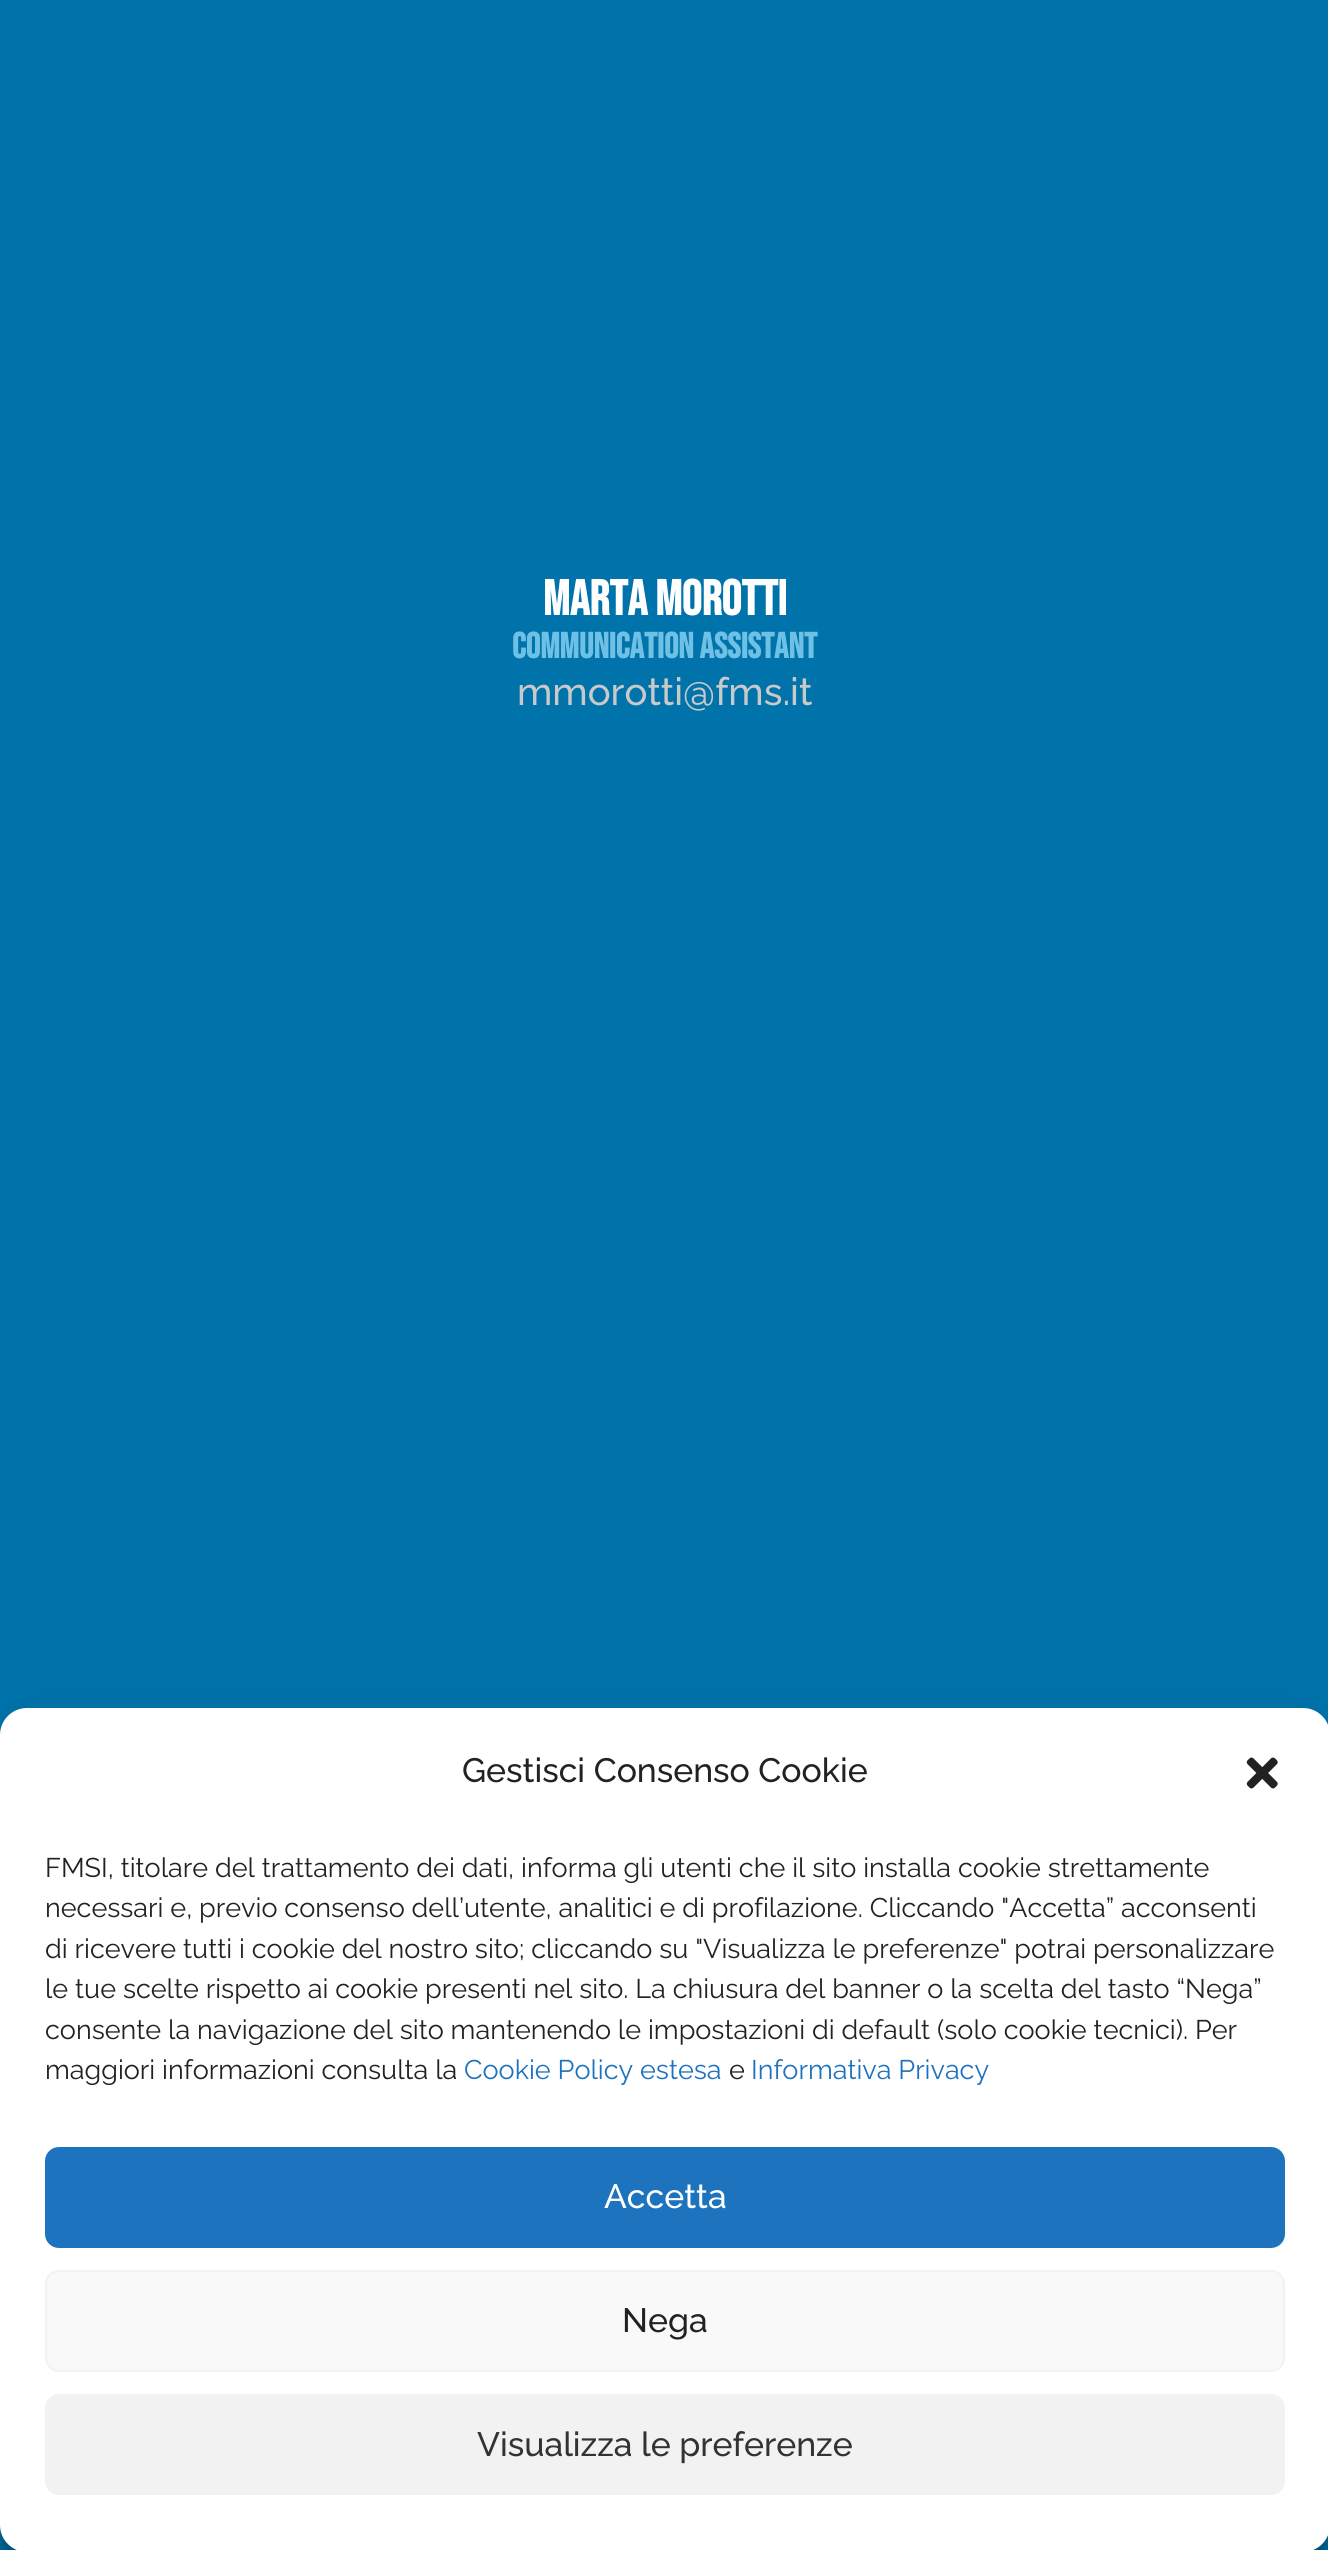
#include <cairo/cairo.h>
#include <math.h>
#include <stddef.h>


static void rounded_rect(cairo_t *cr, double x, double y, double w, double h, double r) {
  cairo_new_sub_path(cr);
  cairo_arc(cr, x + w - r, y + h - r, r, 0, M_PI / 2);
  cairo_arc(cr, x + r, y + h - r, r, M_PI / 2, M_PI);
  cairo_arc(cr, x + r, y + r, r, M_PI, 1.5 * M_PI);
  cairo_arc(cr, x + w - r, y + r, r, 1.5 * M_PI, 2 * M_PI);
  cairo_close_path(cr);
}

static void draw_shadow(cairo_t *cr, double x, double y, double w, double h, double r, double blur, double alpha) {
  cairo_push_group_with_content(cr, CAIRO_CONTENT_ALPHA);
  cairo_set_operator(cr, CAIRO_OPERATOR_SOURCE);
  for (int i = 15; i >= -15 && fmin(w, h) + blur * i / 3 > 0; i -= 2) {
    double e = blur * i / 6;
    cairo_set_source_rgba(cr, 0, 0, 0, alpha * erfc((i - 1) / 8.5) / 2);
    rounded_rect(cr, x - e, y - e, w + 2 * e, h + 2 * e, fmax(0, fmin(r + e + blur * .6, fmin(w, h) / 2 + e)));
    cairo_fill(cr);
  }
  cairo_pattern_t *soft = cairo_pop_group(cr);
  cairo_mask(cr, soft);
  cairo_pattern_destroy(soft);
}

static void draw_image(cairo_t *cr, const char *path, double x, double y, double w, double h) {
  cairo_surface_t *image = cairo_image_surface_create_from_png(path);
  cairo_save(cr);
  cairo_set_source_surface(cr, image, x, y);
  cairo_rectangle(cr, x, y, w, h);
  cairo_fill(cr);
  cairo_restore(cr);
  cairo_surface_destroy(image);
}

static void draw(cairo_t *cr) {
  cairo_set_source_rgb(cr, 0, 115 / 255.0, 171 / 255.0);
  cairo_paint(cr);
  cairo_set_source_rgb(cr, 0, 0, 0);
  draw_shadow(cr, 0, 1721, 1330, 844, 27, 7, 0.23);
  draw_shadow(cr, 0, 1730, 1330, 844, 27, 22.5, 0.19);
  cairo_set_source_rgb(cr, 1, 1, 1);
  rounded_rect(cr, 0, 1708, 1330, 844, 27);
  cairo_fill(cr);
  draw_image(cr, "images/1.png", 1246, 1757, 32, 32);
  cairo_set_source_rgb(cr, 30 / 255.0, 115 / 255.0, 190 / 255.0);
  rounded_rect(cr, 46, 2148, 1238, 99, 13);
  cairo_fill_preserve(cr);
  cairo_stroke(cr);
  cairo_set_source_rgb(cr, 249 / 255.0, 249 / 255.0, 249 / 255.0);
  rounded_rect(cr, 46, 2271, 1238, 100, 13);
  cairo_fill_preserve(cr);
  cairo_set_source_rgb(cr, 242 / 255.0, 242 / 255.0, 242 / 255.0);
  cairo_stroke(cr);
  rounded_rect(cr, 46, 2395, 1238, 99, 13);
  cairo_fill_preserve(cr);
  cairo_stroke(cr);
  cairo_select_font_face(cr, "Bebas Neue", CAIRO_FONT_SLANT_NORMAL, CAIRO_FONT_WEIGHT_BOLD);
  cairo_set_font_size(cr, 49.5);
  cairo_set_source_rgb(cr, 1, 1, 1);
  cairo_move_to(cr, 543, 615);
  cairo_show_text(cr, "marta morotti");
  cairo_set_font_size(cr, 36);
  cairo_set_source_rgb(cr, 110 / 255.0, 193 / 255.0, 228 / 255.0);
  cairo_move_to(cr, 512, 658);
  cairo_show_text(cr, "communication assistant");
  cairo_select_font_face(cr, "Raleway Medium", CAIRO_FONT_SLANT_NORMAL, CAIRO_FONT_WEIGHT_NORMAL);
  cairo_set_font_size(cr, 38.25);
  cairo_set_source_rgb(cr, 201 / 255.0, 201 / 255.0, 201 / 255.0);
  cairo_move_to(cr, 517, 705);
  cairo_show_text(cr, "mmorotti@fms.it");
  cairo_set_font_size(cr, 33.75);
  cairo_set_source_rgb(cr, 34 / 255.0, 34 / 255.0, 34 / 255.0);
  cairo_move_to(cr, 462, 1782);
  cairo_show_text(cr, "Gestisci Consenso Cookie");
  cairo_select_font_face(cr, "Raleway", CAIRO_FONT_SLANT_NORMAL, CAIRO_FONT_WEIGHT_NORMAL);
  cairo_set_font_size(cr, 27);
  cairo_move_to(cr, 45, 1877);
  cairo_show_text(cr, "FMSI, titolare del trattamento dei dati, informa gli utenti che il sito installa cookie strettamente");
  cairo_move_to(cr, 45, 1917);
  cairo_show_text(cr, "necessari e, previo consenso dell’utente, analitici e di profilazione. Cliccando \"Accetta” acconsenti");
  cairo_move_to(cr, 45, 1958);
  cairo_show_text(cr, "di ricevere tutti i cookie del nostro sito; cliccando su \"Visualizza le preferenze\" potrai personalizzare");
  cairo_move_to(cr, 45, 1998);
  cairo_show_text(cr, "le tue scelte rispetto ai cookie presenti nel sito. La chiusura del banner o la scelta del tasto “Nega”");
  cairo_move_to(cr, 45, 2039);
  cairo_show_text(cr, "consente la navigazione del sito mantenendo le impostazioni di default (solo cookie tecnici). Per");
  cairo_move_to(cr, 45, 2079);
  cairo_show_text(cr, "maggiori informazioni consulta la");
  cairo_set_source_rgb(cr, 30 / 255.0, 115 / 255.0, 190 / 255.0);
  cairo_move_to(cr, 464, 2079);
  cairo_show_text(cr, "Cookie Policy estesa");
  cairo_set_source_rgb(cr, 34 / 255.0, 34 / 255.0, 34 / 255.0);
  cairo_move_to(cr, 729, 2079);
  cairo_show_text(cr, "e");
  cairo_set_source_rgb(cr, 30 / 255.0, 115 / 255.0, 190 / 255.0);
  cairo_move_to(cr, 751, 2079);
  cairo_show_text(cr, "Informativa Privacy");
  cairo_select_font_face(cr, "Raleway Medium", CAIRO_FONT_SLANT_NORMAL, CAIRO_FONT_WEIGHT_NORMAL);
  cairo_set_font_size(cr, 33.75);
  cairo_set_source_rgb(cr, 1, 1, 1);
  cairo_move_to(cr, 604, 2208);
  cairo_show_text(cr, "Accetta");
  cairo_set_source_rgb(cr, 34 / 255.0, 34 / 255.0, 34 / 255.0);
  cairo_move_to(cr, 622, 2332);
  cairo_show_text(cr, "Nega");
  cairo_set_source_rgb(cr, 51 / 255.0, 51 / 255.0, 51 / 255.0);
  cairo_move_to(cr, 477, 2456);
  cairo_show_text(cr, "Visualizza le preferenze");
}

int main(void) {
  cairo_surface_t *surface = cairo_image_surface_create(CAIRO_FORMAT_RGB24, 1328, 2550);
  cairo_t *cr = cairo_create(surface);
  cairo_font_options_t *options = cairo_font_options_create();
  cairo_font_options_set_hint_metrics(options, CAIRO_HINT_METRICS_OFF);
  cairo_font_options_set_hint_style(options, CAIRO_HINT_STYLE_NONE);
  cairo_set_font_options(cr, options);
  cairo_set_miter_limit(cr, 4);
  draw(cr);
  cairo_surface_write_to_png(surface, "out.png");
  cairo_font_options_destroy(options);
  cairo_destroy(cr);
  cairo_surface_destroy(surface);
  return 0;
}
